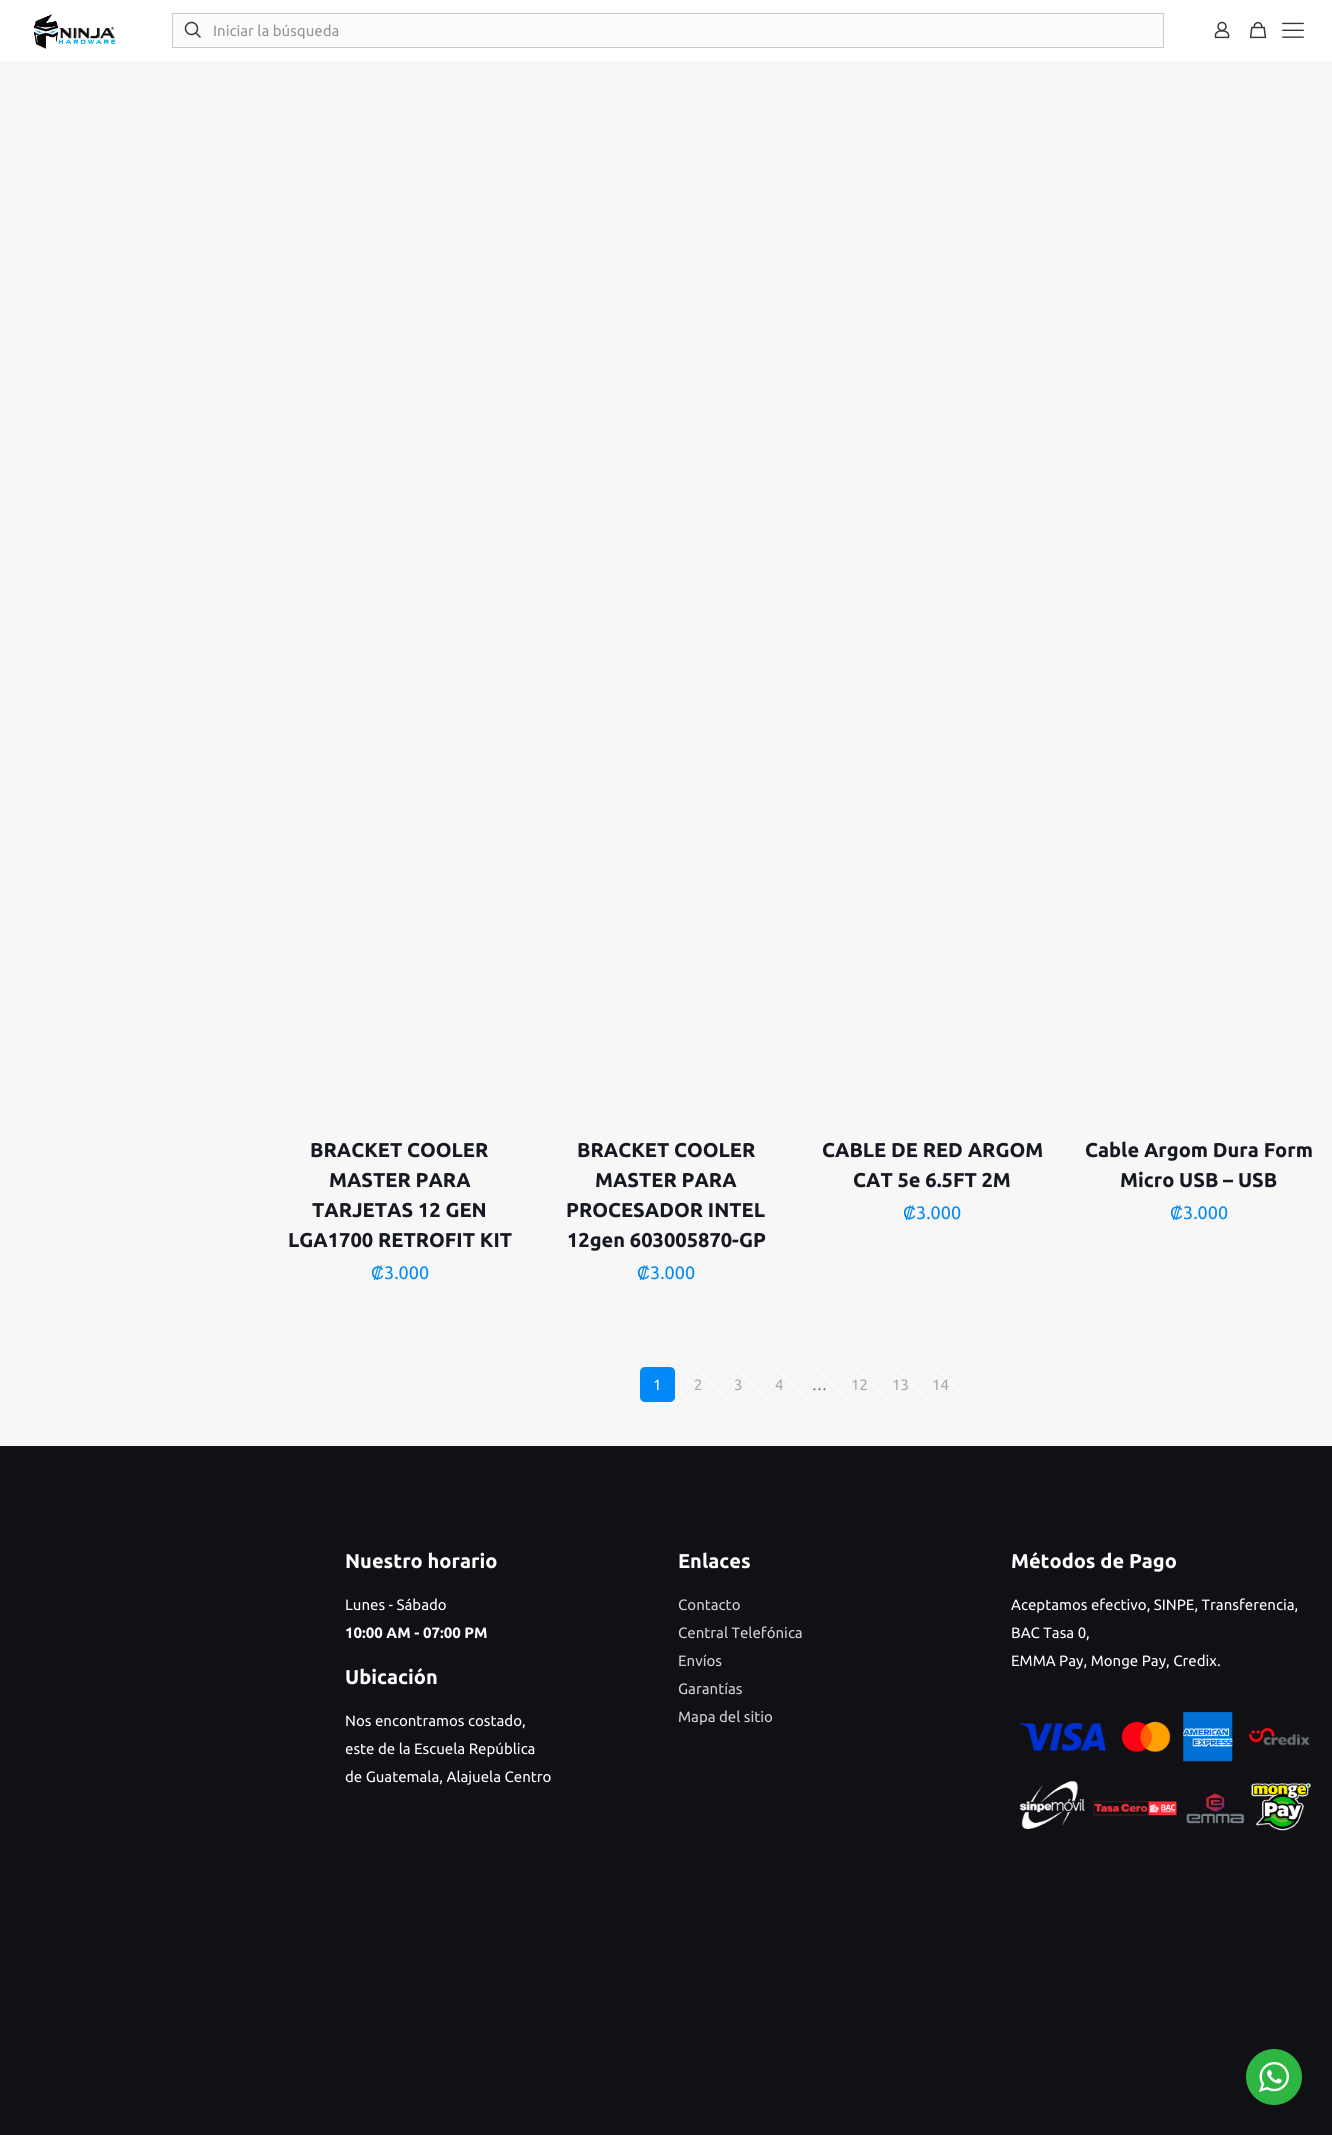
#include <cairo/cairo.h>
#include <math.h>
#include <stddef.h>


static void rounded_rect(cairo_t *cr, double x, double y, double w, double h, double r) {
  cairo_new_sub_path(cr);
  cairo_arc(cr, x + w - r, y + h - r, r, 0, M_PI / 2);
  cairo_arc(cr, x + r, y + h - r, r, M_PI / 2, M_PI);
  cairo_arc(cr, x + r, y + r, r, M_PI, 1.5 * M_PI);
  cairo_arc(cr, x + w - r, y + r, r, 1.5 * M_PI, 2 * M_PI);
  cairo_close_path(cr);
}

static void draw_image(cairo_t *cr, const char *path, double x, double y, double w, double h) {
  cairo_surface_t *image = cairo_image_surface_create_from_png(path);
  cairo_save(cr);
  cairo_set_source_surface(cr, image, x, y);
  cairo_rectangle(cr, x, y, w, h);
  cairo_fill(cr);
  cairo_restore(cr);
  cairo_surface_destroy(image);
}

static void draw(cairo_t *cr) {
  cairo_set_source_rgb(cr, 247 / 255.0, 247 / 255.0, 247 / 255.0);
  cairo_paint(cr);
  cairo_set_source_rgb(cr, 1, 1, 1);
  cairo_rectangle(cr, 0, 0, 1332, 61);
  cairo_fill(cr);
  draw_image(cr, "images/1.png", 33, 14, 83, 35);
  cairo_set_source_rgb(cr, 252 / 255.0, 252 / 255.0, 252 / 255.0);
  cairo_rectangle(cr, 172.5, 13.5, 991, 34);
  cairo_fill_preserve(cr);
  cairo_set_source_rgb(cr, 201 / 255.0, 201 / 255.0, 201 / 255.0);
  cairo_set_line_width(cr, 1);
  cairo_stroke(cr);
  cairo_arc(cr, 191.5, 28.5, 6, 0, 2 * M_PI);
  cairo_set_source_rgb(cr, 57 / 255.0, 57 / 255.0, 57 / 255.0);
  cairo_set_line_width(cr, 1.5);
  cairo_stroke(cr);
  cairo_new_path(cr);
  cairo_move_to(cr, 195.5, 32.5);
  cairo_line_to(cr, 200.5, 37.5);
  cairo_stroke(cr);
  draw_image(cr, "images/2.png", 1214, 21, 16, 18);
  draw_image(cr, "images/3.png", 1249, 21, 18, 18);
  draw_image(cr, "images/4.png", 1282, 22, 22, 16);
  draw_image(cr, "images/5.png", 636, 1363, 326, 43);
  cairo_set_source_rgb(cr, 0, 137 / 255.0, 247 / 255.0);
  rounded_rect(cr, 640, 1367, 35, 35, 5);
  cairo_fill(cr);
  cairo_set_source_rgb(cr, 16 / 255.0, 16 / 255.0, 21 / 255.0);
  cairo_rectangle(cr, 0, 1446, 1332, 689);
  cairo_fill(cr);
  draw_image(cr, "images/6.png", 1019, 1712, 292, 119);
  cairo_set_source_rgb(cr, 45 / 255.0, 183 / 255.0, 66 / 255.0);
  cairo_arc(cr, 1274, 2077, 28, 0, 2 * M_PI);
  cairo_fill(cr);
  draw_image(cr, "images/7.png", 1259, 2062, 30, 30);
  cairo_select_font_face(cr, "Ubuntu", CAIRO_FONT_SLANT_NORMAL, CAIRO_FONT_WEIGHT_NORMAL);
  cairo_set_font_size(cr, 15);
  cairo_set_source_rgb(cr, 149 / 255.0, 149 / 255.0, 149 / 255.0);
  cairo_move_to(cr, 213, 36);
  cairo_show_text(cr, "Iniciar la búsqueda");
  cairo_select_font_face(cr, "Ubuntu", CAIRO_FONT_SLANT_NORMAL, CAIRO_FONT_WEIGHT_BOLD);
  cairo_set_font_size(cr, 20);
  cairo_set_source_rgb(cr, 22 / 255.0, 25 / 255.0, 34 / 255.0);
  cairo_move_to(cr, 310, 1157);
  cairo_show_text(cr, "BRACKET COOLER");
  cairo_move_to(cr, 329, 1187);
  cairo_show_text(cr, "MASTER PARA");
  cairo_move_to(cr, 312, 1217);
  cairo_show_text(cr, "TARJETAS 12 GEN");
  cairo_move_to(cr, 288, 1247);
  cairo_show_text(cr, "LGA1700 RETROFIT KIT");
  cairo_select_font_face(cr, "Liberation Sans", CAIRO_FONT_SLANT_NORMAL, CAIRO_FONT_WEIGHT_NORMAL);
  cairo_set_font_size(cr, 18);
  cairo_set_source_rgb(cr, 0, 137 / 255.0, 247 / 255.0);
  cairo_move_to(cr, 371, 1279);
  cairo_show_text(cr, "₡");
  cairo_select_font_face(cr, "Ubuntu", CAIRO_FONT_SLANT_NORMAL, CAIRO_FONT_WEIGHT_NORMAL);
  cairo_move_to(cr, 384, 1279);
  cairo_show_text(cr, "3.000");
  cairo_select_font_face(cr, "Ubuntu", CAIRO_FONT_SLANT_NORMAL, CAIRO_FONT_WEIGHT_BOLD);
  cairo_set_font_size(cr, 20);
  cairo_set_source_rgb(cr, 22 / 255.0, 25 / 255.0, 34 / 255.0);
  cairo_move_to(cr, 577, 1157);
  cairo_show_text(cr, "BRACKET COOLER");
  cairo_move_to(cr, 595, 1187);
  cairo_show_text(cr, "MASTER PARA");
  cairo_move_to(cr, 566, 1217);
  cairo_show_text(cr, "PROCESADOR INTEL");
  cairo_move_to(cr, 567, 1247);
  cairo_show_text(cr, "12gen 603005870-GP");
  cairo_select_font_face(cr, "Liberation Sans", CAIRO_FONT_SLANT_NORMAL, CAIRO_FONT_WEIGHT_NORMAL);
  cairo_set_font_size(cr, 18);
  cairo_set_source_rgb(cr, 0, 137 / 255.0, 247 / 255.0);
  cairo_move_to(cr, 637, 1279);
  cairo_show_text(cr, "₡");
  cairo_select_font_face(cr, "Ubuntu", CAIRO_FONT_SLANT_NORMAL, CAIRO_FONT_WEIGHT_NORMAL);
  cairo_move_to(cr, 650, 1279);
  cairo_show_text(cr, "3.000");
  cairo_select_font_face(cr, "Ubuntu", CAIRO_FONT_SLANT_NORMAL, CAIRO_FONT_WEIGHT_BOLD);
  cairo_set_font_size(cr, 20);
  cairo_set_source_rgb(cr, 22 / 255.0, 25 / 255.0, 34 / 255.0);
  cairo_move_to(cr, 822, 1157);
  cairo_show_text(cr, "CABLE DE RED ARGOM");
  cairo_move_to(cr, 853, 1187);
  cairo_show_text(cr, "CAT 5e 6.5FT 2M");
  cairo_select_font_face(cr, "Liberation Sans", CAIRO_FONT_SLANT_NORMAL, CAIRO_FONT_WEIGHT_NORMAL);
  cairo_set_font_size(cr, 18);
  cairo_set_source_rgb(cr, 0, 137 / 255.0, 247 / 255.0);
  cairo_move_to(cr, 903, 1219);
  cairo_show_text(cr, "₡");
  cairo_select_font_face(cr, "Ubuntu", CAIRO_FONT_SLANT_NORMAL, CAIRO_FONT_WEIGHT_NORMAL);
  cairo_move_to(cr, 916, 1219);
  cairo_show_text(cr, "3.000");
  cairo_select_font_face(cr, "Ubuntu", CAIRO_FONT_SLANT_NORMAL, CAIRO_FONT_WEIGHT_BOLD);
  cairo_set_font_size(cr, 20);
  cairo_set_source_rgb(cr, 22 / 255.0, 25 / 255.0, 34 / 255.0);
  cairo_move_to(cr, 1085, 1157);
  cairo_show_text(cr, "Cable Argom Dura Form");
  cairo_move_to(cr, 1120, 1187);
  cairo_show_text(cr, "Micro USB – USB");
  cairo_select_font_face(cr, "Liberation Sans", CAIRO_FONT_SLANT_NORMAL, CAIRO_FONT_WEIGHT_NORMAL);
  cairo_set_font_size(cr, 18);
  cairo_set_source_rgb(cr, 0, 137 / 255.0, 247 / 255.0);
  cairo_move_to(cr, 1170, 1219);
  cairo_show_text(cr, "₡");
  cairo_select_font_face(cr, "Ubuntu", CAIRO_FONT_SLANT_NORMAL, CAIRO_FONT_WEIGHT_NORMAL);
  cairo_move_to(cr, 1183, 1219);
  cairo_show_text(cr, "3.000");
  cairo_set_font_size(cr, 15);
  cairo_set_source_rgb(cr, 1, 1, 1);
  cairo_move_to(cr, 653, 1390);
  cairo_show_text(cr, "1");
  cairo_set_source_rgb(cr, 168 / 255.0, 168 / 255.0, 168 / 255.0);
  cairo_move_to(cr, 694, 1390);
  cairo_show_text(cr, "2");
  cairo_move_to(cr, 734, 1390);
  cairo_show_text(cr, "3");
  cairo_move_to(cr, 775, 1390);
  cairo_show_text(cr, "4");
  cairo_set_source_rgb(cr, 98 / 255.0, 98 / 255.0, 98 / 255.0);
  cairo_move_to(cr, 812, 1390);
  cairo_show_text(cr, "…");
  cairo_set_source_rgb(cr, 168 / 255.0, 168 / 255.0, 168 / 255.0);
  cairo_move_to(cr, 851, 1390);
  cairo_show_text(cr, "12");
  cairo_move_to(cr, 892, 1390);
  cairo_show_text(cr, "13");
  cairo_move_to(cr, 932, 1390);
  cairo_show_text(cr, "14");
  cairo_select_font_face(cr, "Ubuntu", CAIRO_FONT_SLANT_NORMAL, CAIRO_FONT_WEIGHT_BOLD);
  cairo_set_font_size(cr, 20);
  cairo_set_source_rgb(cr, 1, 1, 1);
  cairo_move_to(cr, 345, 1568);
  cairo_show_text(cr, "Nuestro horario");
  cairo_select_font_face(cr, "Ubuntu", CAIRO_FONT_SLANT_NORMAL, CAIRO_FONT_WEIGHT_NORMAL);
  cairo_set_font_size(cr, 15);
  cairo_move_to(cr, 345, 1610);
  cairo_show_text(cr, "Lunes - Sábado");
  cairo_select_font_face(cr, "Ubuntu", CAIRO_FONT_SLANT_NORMAL, CAIRO_FONT_WEIGHT_BOLD);
  cairo_move_to(cr, 345, 1638);
  cairo_show_text(cr, "10:00 AM - 07:00 PM");
  cairo_set_font_size(cr, 20);
  cairo_move_to(cr, 345, 1684);
  cairo_show_text(cr, "Ubicación");
  cairo_select_font_face(cr, "Ubuntu", CAIRO_FONT_SLANT_NORMAL, CAIRO_FONT_WEIGHT_NORMAL);
  cairo_set_font_size(cr, 15);
  cairo_move_to(cr, 345, 1726);
  cairo_show_text(cr, "Nos encontramos costado,");
  cairo_move_to(cr, 345, 1754);
  cairo_show_text(cr, "este de la Escuela República");
  cairo_move_to(cr, 345, 1782);
  cairo_show_text(cr, "de Guatemala, Alajuela Centro");
  cairo_select_font_face(cr, "Ubuntu", CAIRO_FONT_SLANT_NORMAL, CAIRO_FONT_WEIGHT_BOLD);
  cairo_set_font_size(cr, 20);
  cairo_move_to(cr, 678, 1568);
  cairo_show_text(cr, "Enlaces");
  cairo_select_font_face(cr, "Ubuntu", CAIRO_FONT_SLANT_NORMAL, CAIRO_FONT_WEIGHT_NORMAL);
  cairo_set_font_size(cr, 15);
  cairo_set_source_rgb(cr, 209 / 255.0, 209 / 255.0, 209 / 255.0);
  cairo_move_to(cr, 678, 1610);
  cairo_show_text(cr, "Contacto");
  cairo_move_to(cr, 678, 1638);
  cairo_show_text(cr, "Central Telefónica");
  cairo_move_to(cr, 678, 1666);
  cairo_show_text(cr, "Envíos");
  cairo_move_to(cr, 678, 1694);
  cairo_show_text(cr, "Garantías");
  cairo_move_to(cr, 678, 1722);
  cairo_show_text(cr, "Mapa del sitio");
  cairo_select_font_face(cr, "Ubuntu", CAIRO_FONT_SLANT_NORMAL, CAIRO_FONT_WEIGHT_BOLD);
  cairo_set_font_size(cr, 20);
  cairo_set_source_rgb(cr, 1, 1, 1);
  cairo_move_to(cr, 1011, 1568);
  cairo_show_text(cr, "Métodos de Pago");
  cairo_select_font_face(cr, "Ubuntu", CAIRO_FONT_SLANT_NORMAL, CAIRO_FONT_WEIGHT_NORMAL);
  cairo_set_font_size(cr, 15);
  cairo_move_to(cr, 1011, 1610);
  cairo_show_text(cr, "Aceptamos efectivo, SINPE, Transferencia,");
  cairo_move_to(cr, 1011, 1638);
  cairo_show_text(cr, "BAC Tasa 0,");
  cairo_move_to(cr, 1011, 1666);
  cairo_show_text(cr, "EMMA Pay, Monge Pay, Credix.");
}

int main(void) {
  cairo_surface_t *surface = cairo_image_surface_create(CAIRO_FORMAT_RGB24, 1332, 2135);
  cairo_t *cr = cairo_create(surface);
  cairo_font_options_t *options = cairo_font_options_create();
  cairo_font_options_set_hint_metrics(options, CAIRO_HINT_METRICS_OFF);
  cairo_font_options_set_hint_style(options, CAIRO_HINT_STYLE_NONE);
  cairo_set_font_options(cr, options);
  cairo_set_miter_limit(cr, 4);
  draw(cr);
  cairo_surface_write_to_png(surface, "out.png");
  cairo_font_options_destroy(options);
  cairo_destroy(cr);
  cairo_surface_destroy(surface);
  return 0;
}
